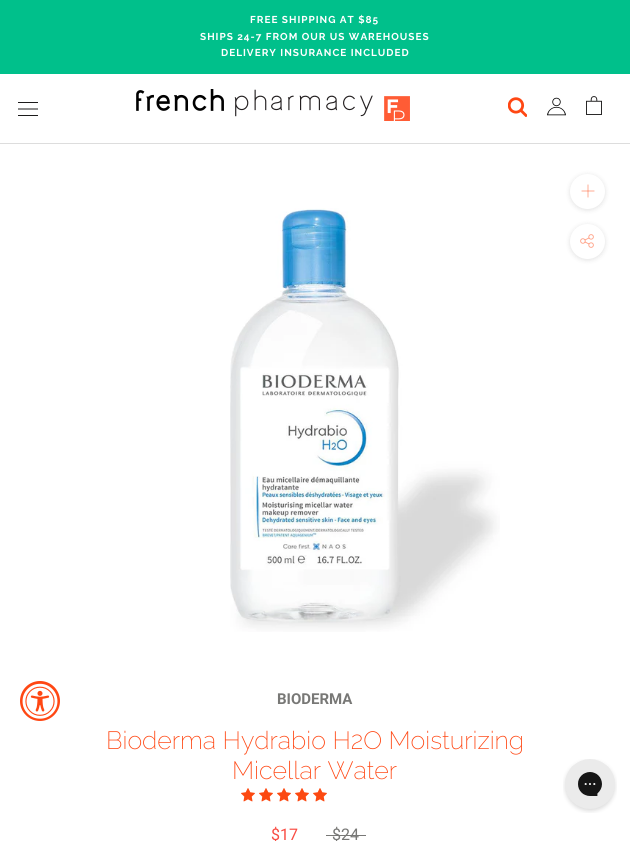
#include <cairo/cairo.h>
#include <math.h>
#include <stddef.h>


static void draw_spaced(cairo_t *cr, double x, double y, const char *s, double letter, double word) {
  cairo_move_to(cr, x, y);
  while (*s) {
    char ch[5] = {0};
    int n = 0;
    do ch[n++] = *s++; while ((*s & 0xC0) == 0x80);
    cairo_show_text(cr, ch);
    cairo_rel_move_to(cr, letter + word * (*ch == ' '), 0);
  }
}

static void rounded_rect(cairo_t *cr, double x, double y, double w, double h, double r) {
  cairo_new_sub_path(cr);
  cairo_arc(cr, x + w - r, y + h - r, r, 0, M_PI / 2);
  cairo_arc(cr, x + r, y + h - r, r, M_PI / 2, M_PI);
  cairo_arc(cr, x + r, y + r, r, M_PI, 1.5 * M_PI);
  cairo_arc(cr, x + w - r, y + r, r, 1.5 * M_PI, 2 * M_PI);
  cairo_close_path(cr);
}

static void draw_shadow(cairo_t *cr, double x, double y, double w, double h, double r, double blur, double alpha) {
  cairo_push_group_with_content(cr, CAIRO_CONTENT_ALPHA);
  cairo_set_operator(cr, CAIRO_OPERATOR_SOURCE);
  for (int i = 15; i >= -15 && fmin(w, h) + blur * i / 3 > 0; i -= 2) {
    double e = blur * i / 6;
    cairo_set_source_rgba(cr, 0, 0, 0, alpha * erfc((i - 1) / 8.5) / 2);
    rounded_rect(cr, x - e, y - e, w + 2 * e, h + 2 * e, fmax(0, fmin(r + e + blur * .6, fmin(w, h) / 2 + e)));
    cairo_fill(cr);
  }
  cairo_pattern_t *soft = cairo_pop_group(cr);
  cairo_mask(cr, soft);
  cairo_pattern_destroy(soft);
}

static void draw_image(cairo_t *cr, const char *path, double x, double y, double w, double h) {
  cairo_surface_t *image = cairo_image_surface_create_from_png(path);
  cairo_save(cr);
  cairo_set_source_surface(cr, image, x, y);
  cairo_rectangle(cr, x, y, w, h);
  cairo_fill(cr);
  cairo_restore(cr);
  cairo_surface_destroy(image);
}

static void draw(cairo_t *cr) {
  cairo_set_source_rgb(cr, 1, 1, 1);
  cairo_paint(cr);
  cairo_set_source_rgb(cr, 1, 71 / 255.0, 19 / 255.0);
  cairo_arc(cr, 40, 701, 20, 0, 2 * M_PI);
  cairo_fill(cr);
  draw_image(cr, "images/1.png", 22, 683, 36, 36);
  cairo_set_source_rgb(cr, 0, 192 / 255.0, 139 / 255.0);
  cairo_rectangle(cr, 0, 0, 630, 74);
  cairo_fill(cr);
  cairo_set_source_rgb(cr, 221 / 255.0, 221 / 255.0, 221 / 255.0);
  cairo_rectangle(cr, 0, 143, 630, 1);
  cairo_fill(cr);
  draw_image(cr, "images/2.png", 18, 102, 20, 14);
  draw_image(cr, "images/3.png", 136, 89, 274, 32);
  draw_image(cr, "images/4.png", 508, 97, 19, 20);
  draw_image(cr, "images/5.png", 547, 97, 19, 19);
  draw_image(cr, "images/6.png", 586, 96, 16, 19);
  draw_image(cr, "images/7.png", 230, 208, 270, 424);
  cairo_set_source_rgb(cr, 54 / 255.0, 54 / 255.0, 54 / 255.0);
  draw_shadow(cr, 570, 175, 35, 35, 17.5, 2.5, 0.15);
  cairo_set_source_rgb(cr, 1, 1, 1);
  cairo_arc(cr, 587.5, 191.5, 17.5, 0, 2 * M_PI);
  cairo_fill(cr);
  cairo_new_path(cr);
  cairo_move_to(cr, 588, 185);
  cairo_line_to(cr, 588, 197);
  cairo_set_source_rgb(cr, 1, 163 / 255.0, 137 / 255.0);
  cairo_set_line_width(cr, 0.9);
  cairo_set_line_cap(cr, CAIRO_LINE_CAP_SQUARE);
  cairo_stroke(cr);
  cairo_new_path(cr);
  cairo_move_to(cr, 582, 191);
  cairo_line_to(cr, 594, 191);
  cairo_set_source_rgba(cr, 1, 71 / 255.0, 19 / 255.0, 0.5);
  cairo_stroke(cr);
  cairo_set_source_rgb(cr, 54 / 255.0, 54 / 255.0, 54 / 255.0);
  draw_shadow(cr, 570, 225, 35, 35, 17.5, 2.5, 0.15);
  cairo_set_source_rgb(cr, 1, 1, 1);
  cairo_arc(cr, 587.5, 241.5, 17.5, 0, 2 * M_PI);
  cairo_fill(cr);
  draw_image(cr, "images/8.png", 580, 234, 14, 14);
  draw_image(cr, "images/9.png", 241, 788, 14, 14);
  draw_image(cr, "images/9.png", 259, 788, 14, 14);
  draw_image(cr, "images/9.png", 277, 788, 14, 14);
  draw_image(cr, "images/9.png", 295, 788, 14, 14);
  draw_image(cr, "images/9.png", 313, 788, 14, 14);
  cairo_set_source_rgb(cr, 120 / 255.0, 120 / 255.0, 118 / 255.0);
  cairo_rectangle(cr, 326, 835, 40, 1);
  cairo_fill(cr);
  draw_image(cr, "images/10.png", 563, 759, 54, 54);
  cairo_select_font_face(cr, "Raleway", CAIRO_FONT_SLANT_NORMAL, CAIRO_FONT_WEIGHT_BOLD);
  cairo_set_font_size(cr, 10);
  cairo_set_source_rgb(cr, 1, 1, 1);
  draw_spaced(cr, 250, 23, "FREE SHIPPING AT $85", 1, 0);
  draw_spaced(cr, 200, 40, "SHIPS 24-7 FROM OUR US WAREHOUSES", 1, 0);
  draw_spaced(cr, 221, 56, "DELIVERY INSURANCE INCLUDED", 1, 0);
  cairo_select_font_face(cr, "Roboto", CAIRO_FONT_SLANT_NORMAL, CAIRO_FONT_WEIGHT_BOLD);
  cairo_set_font_size(cr, 15);
  cairo_set_source_rgb(cr, 120 / 255.0, 120 / 255.0, 118 / 255.0);
  cairo_move_to(cr, 277, 704);
  cairo_show_text(cr, "BIODERMA");
  cairo_select_font_face(cr, "Raleway ExtraLight", CAIRO_FONT_SLANT_NORMAL, CAIRO_FONT_WEIGHT_NORMAL);
  cairo_set_font_size(cr, 25);
  cairo_set_source_rgb(cr, 1, 71 / 255.0, 19 / 255.0);
  cairo_move_to(cr, 106, 749);
  cairo_show_text(cr, "Bioderma Hydrabio H2O Moisturizing");
  cairo_move_to(cr, 232, 779);
  cairo_show_text(cr, "Micellar Water");
  cairo_select_font_face(cr, "Roboto", CAIRO_FONT_SLANT_NORMAL, CAIRO_FONT_WEIGHT_NORMAL);
  cairo_set_font_size(cr, 16);
  cairo_set_source_rgb(cr, 249 / 255.0, 76 / 255.0, 67 / 255.0);
  cairo_move_to(cr, 271, 840);
  cairo_show_text(cr, "$17");
  cairo_set_source_rgb(cr, 120 / 255.0, 120 / 255.0, 118 / 255.0);
  cairo_move_to(cr, 332, 840);
  cairo_show_text(cr, "$24");
}

int main(void) {
  cairo_surface_t *surface = cairo_image_surface_create(CAIRO_FORMAT_RGB24, 630, 841);
  cairo_t *cr = cairo_create(surface);
  cairo_font_options_t *options = cairo_font_options_create();
  cairo_font_options_set_hint_metrics(options, CAIRO_HINT_METRICS_OFF);
  cairo_font_options_set_hint_style(options, CAIRO_HINT_STYLE_NONE);
  cairo_set_font_options(cr, options);
  cairo_set_miter_limit(cr, 4);
  draw(cr);
  cairo_surface_write_to_png(surface, "out.png");
  cairo_font_options_destroy(options);
  cairo_destroy(cr);
  cairo_surface_destroy(surface);
  return 0;
}
